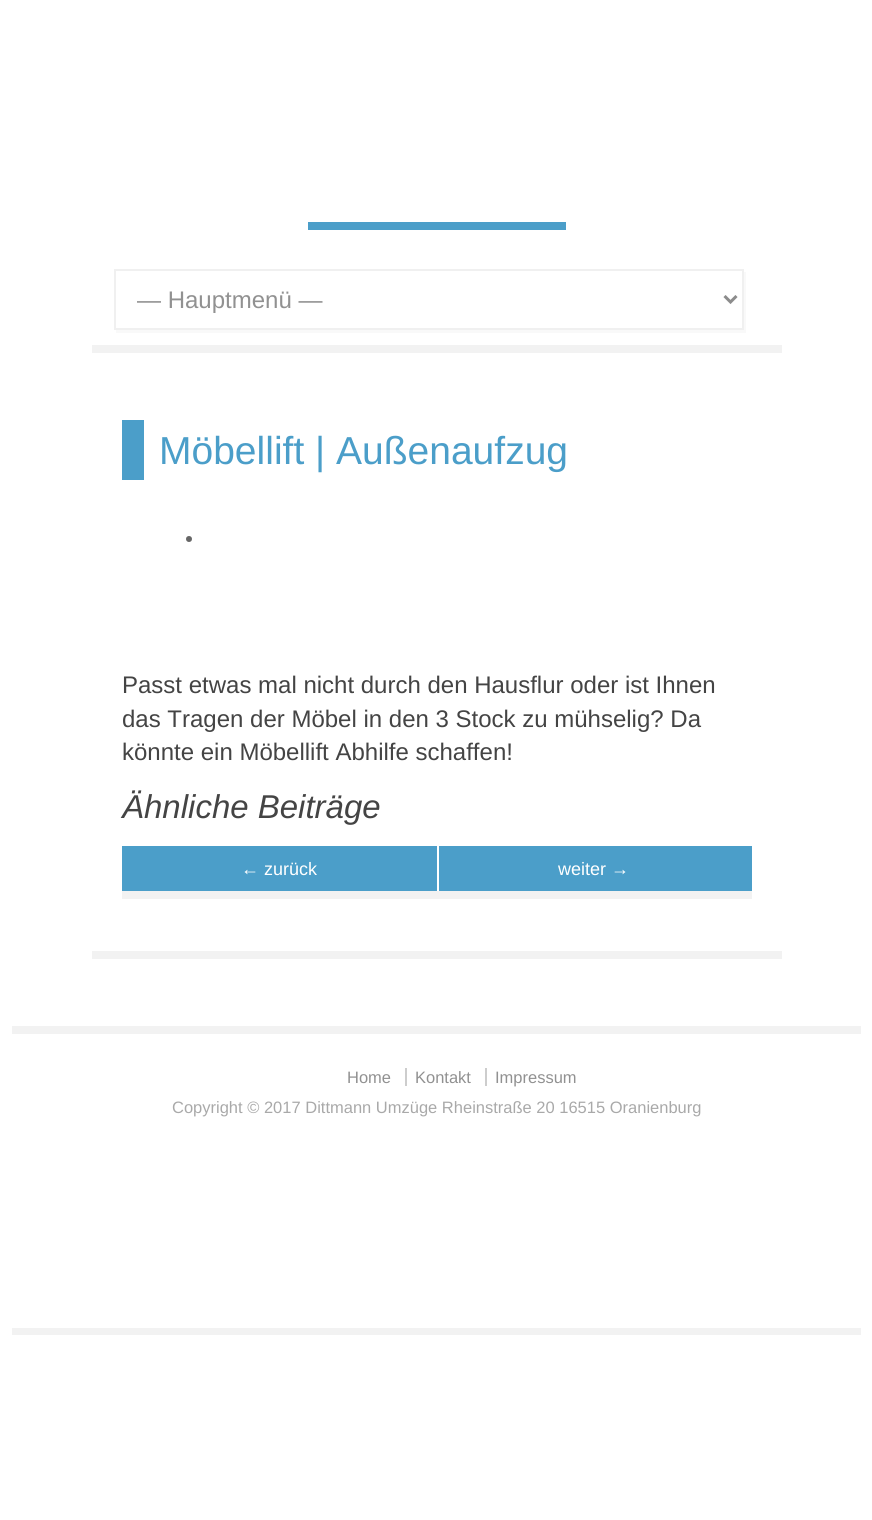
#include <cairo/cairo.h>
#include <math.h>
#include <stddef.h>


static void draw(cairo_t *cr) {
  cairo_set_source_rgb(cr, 1, 1, 1);
  cairo_paint(cr);
  cairo_set_source_rgb(cr, 242 / 255.0, 242 / 255.0, 242 / 255.0);
  cairo_new_path(cr);
  cairo_move_to(cr, 92, 345);
  cairo_line_to(cr, 92, 353);
  cairo_line_to(cr, 782, 353);
  cairo_line_to(cr, 782, 95);
  cairo_line_to(cr, 782, 345);
  cairo_close_path(cr);
  cairo_fill(cr);
  cairo_set_source_rgb(cr, 75 / 255.0, 158 / 255.0, 201 / 255.0);
  cairo_rectangle(cr, 308, 222, 258, 8);
  cairo_fill(cr);
  cairo_set_source_rgb(cr, 249 / 255.0, 249 / 255.0, 249 / 255.0);
  cairo_new_path(cr);
  cairo_move_to(cr, 116, 330);
  cairo_line_to(cr, 116, 333);
  cairo_line_to(cr, 746, 333);
  cairo_line_to(cr, 746, 272);
  cairo_line_to(cr, 744, 272);
  cairo_line_to(cr, 744, 330);
  cairo_close_path(cr);
  cairo_fill(cr);
  cairo_rectangle(cr, 115, 270, 628, 59);
  cairo_set_source_rgb(cr, 240 / 255.0, 240 / 255.0, 240 / 255.0);
  cairo_stroke(cr);
  cairo_new_path(cr);
  cairo_move_to(cr, 724.5, 296);
  cairo_line_to(cr, 730.5, 302);
  cairo_line_to(cr, 736.5, 296);
  cairo_set_source_rgb(cr, 140 / 255.0, 140 / 255.0, 140 / 255.0);
  cairo_set_line_width(cr, 3);
  cairo_stroke(cr);
  cairo_set_source_rgb(cr, 242 / 255.0, 242 / 255.0, 242 / 255.0);
  cairo_new_path(cr);
  cairo_move_to(cr, 92, 951);
  cairo_line_to(cr, 92, 959);
  cairo_line_to(cr, 782, 959);
  cairo_line_to(cr, 782, 398);
  cairo_line_to(cr, 782, 951);
  cairo_close_path(cr);
  cairo_fill(cr);
  cairo_set_source_rgb(cr, 75 / 255.0, 158 / 255.0, 201 / 255.0);
  cairo_rectangle(cr, 122, 420, 22, 60);
  cairo_fill(cr);
  cairo_set_source_rgb(cr, 102 / 255.0, 102 / 255.0, 102 / 255.0);
  cairo_arc(cr, 189, 539, 3, 0, 2 * M_PI);
  cairo_fill(cr);
  cairo_set_source_rgb(cr, 242 / 255.0, 242 / 255.0, 242 / 255.0);
  cairo_new_path(cr);
  cairo_move_to(cr, 122, 891);
  cairo_line_to(cr, 122, 899);
  cairo_line_to(cr, 437, 899);
  cairo_line_to(cr, 437, 854);
  cairo_line_to(cr, 436, 854);
  cairo_line_to(cr, 436, 891);
  cairo_close_path(cr);
  cairo_fill(cr);
  cairo_set_source_rgb(cr, 75 / 255.0, 158 / 255.0, 201 / 255.0);
  cairo_rectangle(cr, 122, 846, 315, 45);
  cairo_fill(cr);
  cairo_set_source_rgb(cr, 242 / 255.0, 242 / 255.0, 242 / 255.0);
  cairo_new_path(cr);
  cairo_move_to(cr, 437, 891);
  cairo_line_to(cr, 437, 899);
  cairo_line_to(cr, 752, 899);
  cairo_line_to(cr, 752, 854);
  cairo_line_to(cr, 752, 891);
  cairo_close_path(cr);
  cairo_fill(cr);
  cairo_set_source_rgb(cr, 75 / 255.0, 158 / 255.0, 201 / 255.0);
  cairo_rectangle(cr, 439, 846, 313, 45);
  cairo_fill(cr);
  cairo_set_source_rgb(cr, 242 / 255.0, 242 / 255.0, 242 / 255.0);
  cairo_rectangle(cr, 12, 1328, 849, 7);
  cairo_fill(cr);
  cairo_rectangle(cr, 12, 1026, 849, 8);
  cairo_fill(cr);
  cairo_set_source_rgb(cr, 205 / 255.0, 205 / 255.0, 205 / 255.0);
  cairo_rectangle(cr, 405, 1068, 2, 18);
  cairo_fill(cr);
  cairo_rectangle(cr, 485, 1068, 2, 18);
  cairo_fill(cr);
  cairo_select_font_face(cr, "Liberation Sans", CAIRO_FONT_SLANT_NORMAL, CAIRO_FONT_WEIGHT_NORMAL);
  cairo_set_font_size(cr, 24);
  cairo_set_source_rgb(cr, 145 / 255.0, 145 / 255.0, 145 / 255.0);
  cairo_move_to(cr, 137, 308);
  cairo_show_text(cr, "— Hauptmenü —");
  cairo_set_font_size(cr, 39);
  cairo_set_source_rgb(cr, 75 / 255.0, 158 / 255.0, 201 / 255.0);
  cairo_move_to(cr, 159, 464);
  cairo_show_text(cr, "Möbellift | Außenaufzug");
  cairo_set_font_size(cr, 24);
  cairo_set_source_rgb(cr, 68 / 255.0, 68 / 255.0, 68 / 255.0);
  cairo_move_to(cr, 122, 693);
  cairo_show_text(cr, "Passt etwas mal nicht durch den Hausflur oder ist Ihnen");
  cairo_move_to(cr, 122, 727);
  cairo_show_text(cr, "das Tragen der Möbel in den 3 Stock zu mühselig? Da");
  cairo_move_to(cr, 122, 760);
  cairo_show_text(cr, "könnte ein Möbellift Abhilfe schaffen!");
  cairo_select_font_face(cr, "Liberation Sans", CAIRO_FONT_SLANT_ITALIC, CAIRO_FONT_WEIGHT_NORMAL);
  cairo_set_font_size(cr, 33);
  cairo_move_to(cr, 122, 818);
  cairo_show_text(cr, "Ähnliche Beiträge");
  cairo_select_font_face(cr, "Liberation Sans", CAIRO_FONT_SLANT_NORMAL, CAIRO_FONT_WEIGHT_NORMAL);
  cairo_set_font_size(cr, 18);
  cairo_set_source_rgb(cr, 1, 1, 1);
  cairo_move_to(cr, 241, 875);
  cairo_show_text(cr, "← zurück");
  cairo_move_to(cr, 558, 875);
  cairo_show_text(cr, "weiter →");
  cairo_set_font_size(cr, 16.5);
  cairo_set_source_rgb(cr, 145 / 255.0, 145 / 255.0, 145 / 255.0);
  cairo_move_to(cr, 347, 1083);
  cairo_show_text(cr, "Home");
  cairo_move_to(cr, 415, 1083);
  cairo_show_text(cr, "Kontakt");
  cairo_move_to(cr, 495, 1083);
  cairo_show_text(cr, "Impressum");
  cairo_set_source_rgb(cr, 169 / 255.0, 169 / 255.0, 169 / 255.0);
  cairo_move_to(cr, 172, 1113);
  cairo_show_text(cr, "Copyright © 2017 Dittmann Umzüge Rheinstraße 20 16515 Oranienburg");
}

int main(void) {
  cairo_surface_t *surface = cairo_image_surface_create(CAIRO_FORMAT_RGB24, 872, 1520);
  cairo_t *cr = cairo_create(surface);
  cairo_font_options_t *options = cairo_font_options_create();
  cairo_font_options_set_hint_metrics(options, CAIRO_HINT_METRICS_OFF);
  cairo_font_options_set_hint_style(options, CAIRO_HINT_STYLE_NONE);
  cairo_set_font_options(cr, options);
  cairo_set_miter_limit(cr, 4);
  draw(cr);
  cairo_surface_write_to_png(surface, "out.png");
  cairo_font_options_destroy(options);
  cairo_destroy(cr);
  cairo_surface_destroy(surface);
  return 0;
}
